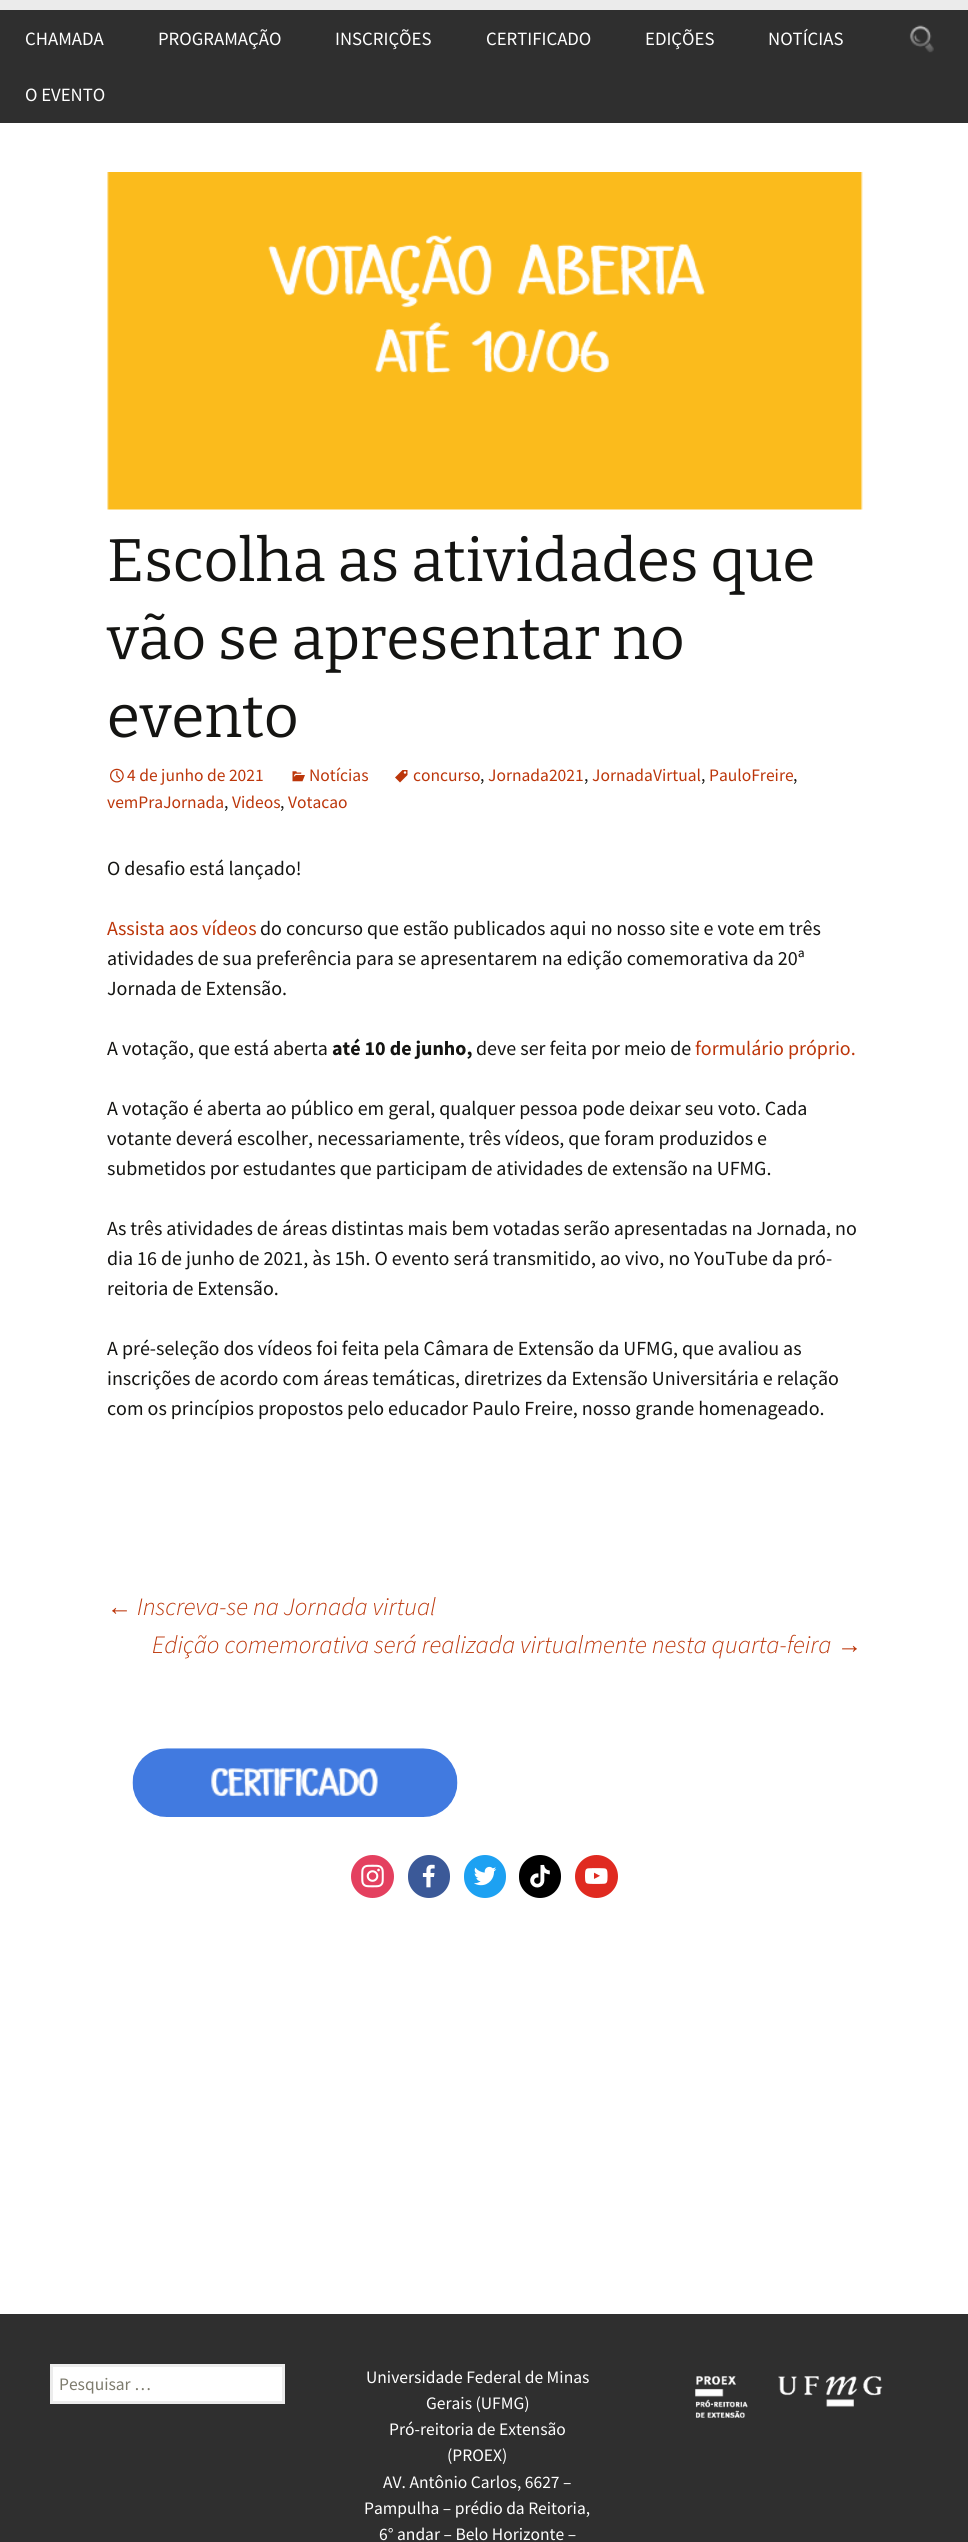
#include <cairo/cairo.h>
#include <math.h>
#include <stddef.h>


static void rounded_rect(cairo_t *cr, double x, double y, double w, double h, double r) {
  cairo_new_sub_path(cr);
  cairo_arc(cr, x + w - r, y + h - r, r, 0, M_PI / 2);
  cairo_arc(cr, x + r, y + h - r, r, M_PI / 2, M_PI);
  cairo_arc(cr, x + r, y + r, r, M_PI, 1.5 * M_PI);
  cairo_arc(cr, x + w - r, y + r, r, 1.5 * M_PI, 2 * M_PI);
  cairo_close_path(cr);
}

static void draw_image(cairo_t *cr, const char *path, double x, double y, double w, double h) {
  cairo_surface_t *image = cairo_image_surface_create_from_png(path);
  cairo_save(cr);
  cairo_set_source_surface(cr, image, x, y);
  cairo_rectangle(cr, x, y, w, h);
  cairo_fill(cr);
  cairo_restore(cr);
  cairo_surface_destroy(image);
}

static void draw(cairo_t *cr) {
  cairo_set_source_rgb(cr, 1, 1, 1);
  cairo_paint(cr);
  cairo_set_source_rgb(cr, 235 / 255.0, 235 / 255.0, 235 / 255.0);
  cairo_rectangle(cr, 0, 0, 968, 10);
  cairo_fill(cr);
  cairo_set_source_rgb(cr, 47 / 255.0, 47 / 255.0, 47 / 255.0);
  cairo_rectangle(cr, 0, 10, 968, 113);
  cairo_fill(cr);
  draw_image(cr, "images/1.png", 909, 25, 25, 28);
  draw_image(cr, "images/2.png", 107, 172, 756, 338);
  draw_image(cr, "images/3.png", 292, 771, 13, 11);
  draw_image(cr, "images/4.png", 395, 770, 13, 13);
  draw_image(cr, "images/5.png", 110, 768, 14, 15);
  draw_image(cr, "images/6.png", 132, 1748, 326, 69);
  cairo_set_source_rgb(cr, 228 / 255.0, 64 / 255.0, 95 / 255.0);
  cairo_arc(cr, 372.5, 1876.5, 21.5, 0, 2 * M_PI);
  cairo_fill(cr);
  draw_image(cr, "images/7.png", 361, 1864, 23, 24);
  cairo_set_source_rgb(cr, 59 / 255.0, 89 / 255.0, 152 / 255.0);
  rounded_rect(cr, 408, 1855, 42, 43, 21);
  cairo_fill(cr);
  draw_image(cr, "images/8.png", 422, 1864, 13, 24);
  cairo_set_source_rgb(cr, 29 / 255.0, 161 / 255.0, 242 / 255.0);
  rounded_rect(cr, 464, 1855, 42, 43, 21);
  cairo_fill(cr);
  draw_image(cr, "images/9.png", 474, 1866, 23, 20);
  cairo_set_source_rgb(cr, 0, 0, 0);
  rounded_rect(cr, 519, 1855, 42, 43, 21);
  cairo_fill(cr);
  draw_image(cr, "images/10.png", 530, 1864, 20, 24);
  cairo_set_source_rgb(cr, 224 / 255.0, 42 / 255.0, 32 / 255.0);
  cairo_arc(cr, 596.5, 1876.5, 21.5, 0, 2 * M_PI);
  cairo_fill(cr);
  draw_image(cr, "images/11.png", 585, 1868, 23, 16);
  cairo_set_source_rgb(cr, 47 / 255.0, 47 / 255.0, 47 / 255.0);
  cairo_rectangle(cr, 0, 2314, 968, 228);
  cairo_fill(cr);
  cairo_set_source_rgb(cr, 1, 1, 1);
  cairo_rectangle(cr, 51.5, 2365.5, 232, 37);
  cairo_fill_preserve(cr);
  cairo_set_source_rgb(cr, 236 / 255.0, 236 / 255.0, 236 / 255.0);
  cairo_set_line_width(cr, 3);
  cairo_stroke(cr);
  draw_image(cr, "images/12.png", 695, 2376, 188, 42);
  cairo_select_font_face(cr, "Source Sans Pro", CAIRO_FONT_SLANT_NORMAL, CAIRO_FONT_WEIGHT_NORMAL);
  cairo_set_font_size(cr, 18.75);
  cairo_set_source_rgb(cr, 1, 1, 1);
  cairo_move_to(cr, 25, 45);
  cairo_show_text(cr, "CHAMADA");
  cairo_move_to(cr, 158, 45);
  cairo_show_text(cr, "PROGRAMAÇÃO");
  cairo_move_to(cr, 335, 45);
  cairo_show_text(cr, "INSCRIÇÕES");
  cairo_move_to(cr, 486, 45);
  cairo_show_text(cr, "CERTIFICADO");
  cairo_move_to(cr, 645, 45);
  cairo_show_text(cr, "EDIÇÕES");
  cairo_move_to(cr, 768, 45);
  cairo_show_text(cr, "NOTÍCIAS");
  cairo_move_to(cr, 25, 101);
  cairo_show_text(cr, "O EVENTO");
  cairo_select_font_face(cr, "Bitter", CAIRO_FONT_SLANT_NORMAL, CAIRO_FONT_WEIGHT_NORMAL);
  cairo_set_font_size(cr, 60);
  cairo_set_source_rgb(cr, 20 / 255.0, 20 / 255.0, 18 / 255.0);
  cairo_move_to(cr, 107, 581);
  cairo_show_text(cr, "Escolha as atividades que");
  cairo_move_to(cr, 107, 659);
  cairo_show_text(cr, "vão se apresentar no");
  cairo_move_to(cr, 107, 737);
  cairo_show_text(cr, "evento");
  cairo_select_font_face(cr, "Source Sans Pro", CAIRO_FONT_SLANT_NORMAL, CAIRO_FONT_WEIGHT_NORMAL);
  cairo_set_font_size(cr, 17.5);
  cairo_set_source_rgb(cr, 188 / 255.0, 54 / 255.0, 10 / 255.0);
  cairo_move_to(cr, 309, 781);
  cairo_show_text(cr, "Notícias");
  cairo_move_to(cr, 413, 781);
  cairo_show_text(cr, "concurso");
  cairo_set_source_rgb(cr, 20 / 255.0, 20 / 255.0, 18 / 255.0);
  cairo_move_to(cr, 480, 781);
  cairo_show_text(cr, ",");
  cairo_set_source_rgb(cr, 188 / 255.0, 54 / 255.0, 10 / 255.0);
  cairo_move_to(cr, 488, 781);
  cairo_show_text(cr, "Jornada2021");
  cairo_set_source_rgb(cr, 20 / 255.0, 20 / 255.0, 18 / 255.0);
  cairo_move_to(cr, 584, 781);
  cairo_show_text(cr, ",");
  cairo_set_source_rgb(cr, 188 / 255.0, 54 / 255.0, 10 / 255.0);
  cairo_move_to(cr, 592, 781);
  cairo_show_text(cr, "JornadaVirtual");
  cairo_set_source_rgb(cr, 20 / 255.0, 20 / 255.0, 18 / 255.0);
  cairo_move_to(cr, 701, 781);
  cairo_show_text(cr, ",");
  cairo_set_source_rgb(cr, 188 / 255.0, 54 / 255.0, 10 / 255.0);
  cairo_move_to(cr, 709, 781);
  cairo_show_text(cr, "PauloFreire");
  cairo_set_source_rgb(cr, 20 / 255.0, 20 / 255.0, 18 / 255.0);
  cairo_move_to(cr, 793, 781);
  cairo_show_text(cr, ",");
  cairo_set_source_rgb(cr, 188 / 255.0, 54 / 255.0, 10 / 255.0);
  cairo_move_to(cr, 107, 808);
  cairo_show_text(cr, "vemPraJornada");
  cairo_set_source_rgb(cr, 20 / 255.0, 20 / 255.0, 18 / 255.0);
  cairo_move_to(cr, 224, 808);
  cairo_show_text(cr, ",");
  cairo_set_source_rgb(cr, 188 / 255.0, 54 / 255.0, 10 / 255.0);
  cairo_move_to(cr, 232, 808);
  cairo_show_text(cr, "Videos");
  cairo_set_source_rgb(cr, 20 / 255.0, 20 / 255.0, 18 / 255.0);
  cairo_move_to(cr, 280, 808);
  cairo_show_text(cr, ",");
  cairo_set_source_rgb(cr, 188 / 255.0, 54 / 255.0, 10 / 255.0);
  cairo_move_to(cr, 288, 808);
  cairo_show_text(cr, "Votacao");
  cairo_move_to(cr, 127, 781);
  cairo_show_text(cr, "4 de junho de 2021");
  cairo_set_font_size(cr, 20);
  cairo_set_source_rgb(cr, 20 / 255.0, 20 / 255.0, 18 / 255.0);
  cairo_move_to(cr, 107, 875);
  cairo_show_text(cr, "O desafio está lançado!");
  cairo_set_source_rgb(cr, 188 / 255.0, 54 / 255.0, 10 / 255.0);
  cairo_move_to(cr, 107, 935);
  cairo_show_text(cr, "Assista aos vídeos");
  cairo_set_source_rgb(cr, 20 / 255.0, 20 / 255.0, 18 / 255.0);
  cairo_move_to(cr, 260, 935);
  cairo_show_text(cr, "do concurso que estão publicados aqui no nosso site e vote em três");
  cairo_move_to(cr, 107, 965);
  cairo_show_text(cr, "atividades de sua preferência para se apresentarem na edição comemorativa da 20ª");
  cairo_move_to(cr, 107, 995);
  cairo_show_text(cr, "Jornada de Extensão.");
  cairo_move_to(cr, 107, 1055);
  cairo_show_text(cr, "A votação, que está aberta");
  cairo_select_font_face(cr, "Source Sans Pro", CAIRO_FONT_SLANT_NORMAL, CAIRO_FONT_WEIGHT_BOLD);
  cairo_move_to(cr, 332, 1055);
  cairo_show_text(cr, "até 10 de junho,");
  cairo_select_font_face(cr, "Source Sans Pro", CAIRO_FONT_SLANT_NORMAL, CAIRO_FONT_WEIGHT_NORMAL);
  cairo_move_to(cr, 476, 1055);
  cairo_show_text(cr, "deve ser feita por meio de");
  cairo_set_source_rgb(cr, 188 / 255.0, 54 / 255.0, 10 / 255.0);
  cairo_move_to(cr, 695, 1055);
  cairo_show_text(cr, "formulário próprio.");
  cairo_set_source_rgb(cr, 20 / 255.0, 20 / 255.0, 18 / 255.0);
  cairo_move_to(cr, 107, 1115);
  cairo_show_text(cr, "A votação é aberta ao público em geral, qualquer pessoa pode deixar seu voto. Cada");
  cairo_move_to(cr, 107, 1145);
  cairo_show_text(cr, "votante deverá escolher, necessariamente, três vídeos, que foram produzidos e");
  cairo_move_to(cr, 107, 1175);
  cairo_show_text(cr, "submetidos por estudantes que participam de atividades de extensão na UFMG.");
  cairo_move_to(cr, 107, 1235);
  cairo_show_text(cr, "As três atividades de áreas distintas mais bem votadas serão apresentadas na Jornada, no");
  cairo_move_to(cr, 107, 1265);
  cairo_show_text(cr, "dia 16 de junho de 2021, às 15h. O evento será transmitido, ao vivo, no YouTube da pró-");
  cairo_move_to(cr, 107, 1295);
  cairo_show_text(cr, "reitoria de Extensão.");
  cairo_move_to(cr, 107, 1355);
  cairo_show_text(cr, "A pré-seleção dos vídeos foi feita pela Câmara de Extensão da UFMG, que avaliou as");
  cairo_move_to(cr, 107, 1385);
  cairo_show_text(cr, "inscrições de acordo com áreas temáticas, diretrizes da Extensão Universitária e relação");
  cairo_move_to(cr, 107, 1415);
  cairo_show_text(cr, "com os princípios propostos pelo educador Paulo Freire, nosso grande homenageado.");
  cairo_select_font_face(cr, "Liberation Sans", CAIRO_FONT_SLANT_ITALIC, CAIRO_FONT_WEIGHT_NORMAL);
  cairo_set_font_size(cr, 25);
  cairo_set_source_rgb(cr, 188 / 255.0, 54 / 255.0, 10 / 255.0);
  cairo_move_to(cr, 107, 1615);
  cairo_show_text(cr, "←");
  cairo_select_font_face(cr, "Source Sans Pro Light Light", CAIRO_FONT_SLANT_ITALIC, CAIRO_FONT_WEIGHT_NORMAL);
  cairo_move_to(cr, 137, 1615);
  cairo_show_text(cr, "Inscreva-se na Jornada virtual");
  cairo_move_to(cr, 152, 1653);
  cairo_show_text(cr, "Edição comemorativa será realizada virtualmente nesta quarta-feira");
  cairo_select_font_face(cr, "Liberation Sans", CAIRO_FONT_SLANT_ITALIC, CAIRO_FONT_WEIGHT_NORMAL);
  cairo_move_to(cr, 837, 1653);
  cairo_show_text(cr, "→");
  cairo_select_font_face(cr, "Source Sans Pro", CAIRO_FONT_SLANT_NORMAL, CAIRO_FONT_WEIGHT_NORMAL);
  cairo_set_font_size(cr, 17.5);
  cairo_set_source_rgb(cr, 125 / 255.0, 123 / 255.0, 109 / 255.0);
  cairo_move_to(cr, 59, 2390);
  cairo_show_text(cr, "Pesquisar …");
  cairo_set_source_rgb(cr, 1, 1, 1);
  cairo_move_to(cr, 366, 2383);
  cairo_show_text(cr, "Universidade Federal de Minas");
  cairo_move_to(cr, 426, 2409);
  cairo_show_text(cr, "Gerais (UFMG)");
  cairo_move_to(cr, 389, 2435);
  cairo_show_text(cr, "Pró-reitoria de Extensão");
  cairo_move_to(cr, 447, 2461);
  cairo_show_text(cr, "(PROEX)");
  cairo_move_to(cr, 383, 2488);
  cairo_show_text(cr, "AV. Antônio Carlos, 6627 –");
  cairo_move_to(cr, 364, 2514);
  cairo_show_text(cr, "Pampulha – prédio da Reitoria,");
  cairo_move_to(cr, 379, 2540);
  cairo_show_text(cr, "6° andar – Belo Horizonte –");
}

int main(void) {
  cairo_surface_t *surface = cairo_image_surface_create(CAIRO_FORMAT_RGB24, 968, 2542);
  cairo_t *cr = cairo_create(surface);
  cairo_font_options_t *options = cairo_font_options_create();
  cairo_font_options_set_hint_metrics(options, CAIRO_HINT_METRICS_OFF);
  cairo_font_options_set_hint_style(options, CAIRO_HINT_STYLE_NONE);
  cairo_set_font_options(cr, options);
  cairo_set_miter_limit(cr, 4);
  draw(cr);
  cairo_surface_write_to_png(surface, "out.png");
  cairo_font_options_destroy(options);
  cairo_destroy(cr);
  cairo_surface_destroy(surface);
  return 0;
}
